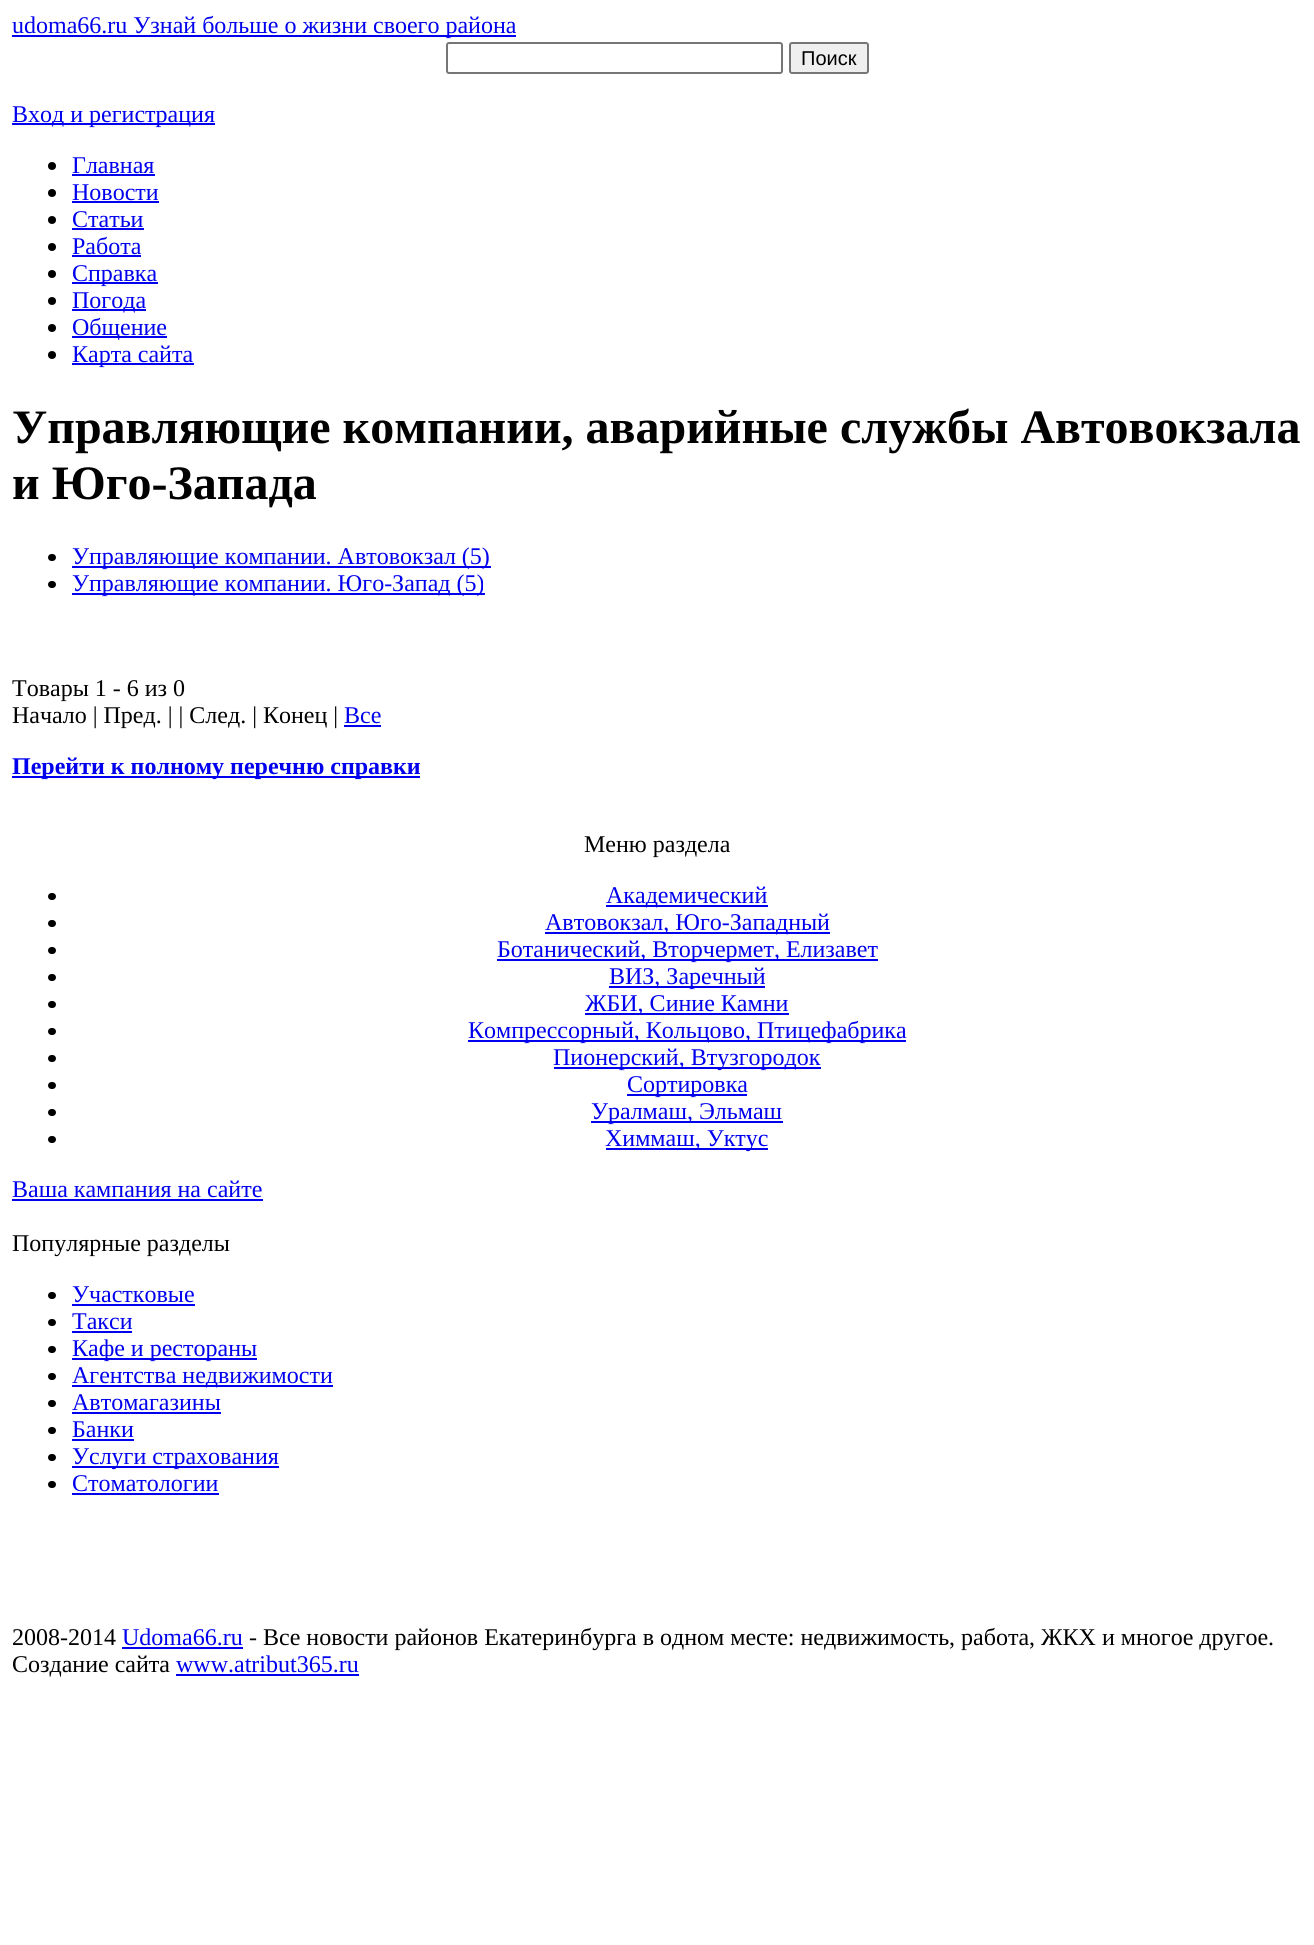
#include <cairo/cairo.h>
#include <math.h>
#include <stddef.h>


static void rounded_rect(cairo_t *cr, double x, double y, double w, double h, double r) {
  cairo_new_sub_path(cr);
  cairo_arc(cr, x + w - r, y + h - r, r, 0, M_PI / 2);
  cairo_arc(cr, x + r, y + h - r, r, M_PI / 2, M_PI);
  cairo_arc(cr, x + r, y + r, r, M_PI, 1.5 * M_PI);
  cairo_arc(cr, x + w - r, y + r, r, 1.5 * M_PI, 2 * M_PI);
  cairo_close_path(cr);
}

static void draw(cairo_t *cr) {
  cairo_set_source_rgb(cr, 1, 1, 1);
  cairo_paint(cr);
  cairo_set_source_rgb(cr, 0, 0, 238 / 255.0);
  cairo_rectangle(cr, 12, 35, 504, 2);
  cairo_fill(cr);
  rounded_rect(cr, 447, 43, 335, 30, 2);
  cairo_set_source_rgb(cr, 118 / 255.0, 118 / 255.0, 118 / 255.0);
  cairo_stroke(cr);
  cairo_set_source_rgb(cr, 239 / 255.0, 239 / 255.0, 239 / 255.0);
  rounded_rect(cr, 790, 43, 78, 30, 2);
  cairo_fill_preserve(cr);
  cairo_set_source_rgb(cr, 118 / 255.0, 118 / 255.0, 118 / 255.0);
  cairo_stroke(cr);
  cairo_set_source_rgb(cr, 0, 0, 238 / 255.0);
  cairo_rectangle(cr, 12, 123, 203, 2);
  cairo_fill(cr);
  cairo_set_source_rgb(cr, 0, 0, 0);
  cairo_arc(cr, 52, 166, 4, 0, 2 * M_PI);
  cairo_fill(cr);
  cairo_set_source_rgb(cr, 0, 0, 238 / 255.0);
  cairo_rectangle(cr, 72, 174, 83, 2);
  cairo_fill(cr);
  cairo_set_source_rgb(cr, 0, 0, 0);
  cairo_arc(cr, 52, 193, 4, 0, 2 * M_PI);
  cairo_fill(cr);
  cairo_set_source_rgb(cr, 0, 0, 238 / 255.0);
  cairo_rectangle(cr, 72, 201, 87, 2);
  cairo_fill(cr);
  cairo_set_source_rgb(cr, 0, 0, 0);
  cairo_arc(cr, 52, 220, 4, 0, 2 * M_PI);
  cairo_fill(cr);
  cairo_set_source_rgb(cr, 0, 0, 238 / 255.0);
  cairo_rectangle(cr, 72, 228, 72, 2);
  cairo_fill(cr);
  cairo_set_source_rgb(cr, 0, 0, 0);
  cairo_arc(cr, 52, 247, 4, 0, 2 * M_PI);
  cairo_fill(cr);
  cairo_set_source_rgb(cr, 0, 0, 238 / 255.0);
  cairo_rectangle(cr, 72, 255, 69, 2);
  cairo_fill(cr);
  cairo_set_source_rgb(cr, 0, 0, 0);
  cairo_arc(cr, 52, 274, 4, 0, 2 * M_PI);
  cairo_fill(cr);
  cairo_set_source_rgb(cr, 0, 0, 238 / 255.0);
  cairo_rectangle(cr, 72, 282, 86, 2);
  cairo_fill(cr);
  cairo_set_source_rgb(cr, 0, 0, 0);
  cairo_arc(cr, 52, 301, 4, 0, 2 * M_PI);
  cairo_fill(cr);
  cairo_set_source_rgb(cr, 0, 0, 238 / 255.0);
  cairo_rectangle(cr, 72, 309, 74, 2);
  cairo_fill(cr);
  cairo_set_source_rgb(cr, 0, 0, 0);
  cairo_arc(cr, 52, 328, 4, 0, 2 * M_PI);
  cairo_fill(cr);
  cairo_set_source_rgb(cr, 0, 0, 238 / 255.0);
  cairo_rectangle(cr, 72, 336, 95, 2);
  cairo_fill(cr);
  cairo_set_source_rgb(cr, 0, 0, 0);
  cairo_arc(cr, 52, 355, 4, 0, 2 * M_PI);
  cairo_fill(cr);
  cairo_set_source_rgb(cr, 0, 0, 238 / 255.0);
  cairo_rectangle(cr, 72, 363, 122, 2);
  cairo_fill(cr);
  cairo_set_source_rgb(cr, 0, 0, 0);
  rounded_rect(cr, 48, 554, 8, 7, 3.5);
  cairo_fill(cr);
  cairo_set_source_rgb(cr, 0, 0, 238 / 255.0);
  cairo_rectangle(cr, 72, 566, 419, 2);
  cairo_fill(cr);
  cairo_set_source_rgb(cr, 0, 0, 0);
  rounded_rect(cr, 48, 581, 8, 7, 3.5);
  cairo_fill(cr);
  cairo_set_source_rgb(cr, 0, 0, 238 / 255.0);
  cairo_rectangle(cr, 72, 593, 413, 2);
  cairo_fill(cr);
  cairo_rectangle(cr, 344, 725, 37, 2);
  cairo_fill(cr);
  cairo_rectangle(cr, 12, 776, 408, 2);
  cairo_fill(cr);
  cairo_set_source_rgb(cr, 0, 0, 0);
  rounded_rect(cr, 48, 893, 8, 7, 3.5);
  cairo_fill(cr);
  cairo_set_source_rgb(cr, 0, 0, 238 / 255.0);
  cairo_rectangle(cr, 606, 905, 162, 2);
  cairo_fill(cr);
  cairo_set_source_rgb(cr, 0, 0, 0);
  rounded_rect(cr, 48, 920, 8, 7, 3.5);
  cairo_fill(cr);
  cairo_set_source_rgb(cr, 0, 0, 238 / 255.0);
  cairo_rectangle(cr, 545, 932, 285, 2);
  cairo_fill(cr);
  cairo_set_source_rgb(cr, 0, 0, 0);
  rounded_rect(cr, 48, 947, 8, 7, 3.5);
  cairo_fill(cr);
  cairo_set_source_rgb(cr, 0, 0, 238 / 255.0);
  cairo_rectangle(cr, 497, 959, 381, 2);
  cairo_fill(cr);
  cairo_set_source_rgb(cr, 0, 0, 0);
  rounded_rect(cr, 48, 974, 8, 7, 3.5);
  cairo_fill(cr);
  cairo_set_source_rgb(cr, 0, 0, 238 / 255.0);
  cairo_rectangle(cr, 609, 986, 156, 2);
  cairo_fill(cr);
  cairo_set_source_rgb(cr, 0, 0, 0);
  rounded_rect(cr, 48, 1001, 8, 7, 3.5);
  cairo_fill(cr);
  cairo_set_source_rgb(cr, 0, 0, 238 / 255.0);
  cairo_rectangle(cr, 585, 1013, 204, 2);
  cairo_fill(cr);
  cairo_set_source_rgb(cr, 0, 0, 0);
  rounded_rect(cr, 48, 1028, 8, 7, 3.5);
  cairo_fill(cr);
  cairo_set_source_rgb(cr, 0, 0, 238 / 255.0);
  cairo_rectangle(cr, 468, 1040, 438, 2);
  cairo_fill(cr);
  cairo_set_source_rgb(cr, 0, 0, 0);
  rounded_rect(cr, 48, 1055, 8, 7, 3.5);
  cairo_fill(cr);
  cairo_set_source_rgb(cr, 0, 0, 238 / 255.0);
  cairo_rectangle(cr, 554, 1067, 267, 2);
  cairo_fill(cr);
  cairo_set_source_rgb(cr, 0, 0, 0);
  rounded_rect(cr, 48, 1082, 8, 7, 3.5);
  cairo_fill(cr);
  cairo_set_source_rgb(cr, 0, 0, 238 / 255.0);
  cairo_rectangle(cr, 627, 1094, 120, 2);
  cairo_fill(cr);
  cairo_set_source_rgb(cr, 0, 0, 0);
  rounded_rect(cr, 48, 1109, 8, 7, 3.5);
  cairo_fill(cr);
  cairo_set_source_rgb(cr, 0, 0, 238 / 255.0);
  cairo_rectangle(cr, 591, 1121, 192, 2);
  cairo_fill(cr);
  cairo_set_source_rgb(cr, 0, 0, 0);
  rounded_rect(cr, 48, 1136, 8, 7, 3.5);
  cairo_fill(cr);
  cairo_set_source_rgb(cr, 0, 0, 238 / 255.0);
  cairo_rectangle(cr, 606, 1148, 162, 2);
  cairo_fill(cr);
  cairo_rectangle(cr, 12, 1199, 251, 2);
  cairo_fill(cr);
  cairo_set_source_rgb(cr, 0, 0, 0);
  rounded_rect(cr, 48, 1292, 8, 7, 3.5);
  cairo_fill(cr);
  cairo_set_source_rgb(cr, 0, 0, 238 / 255.0);
  cairo_rectangle(cr, 72, 1304, 123, 2);
  cairo_fill(cr);
  cairo_set_source_rgb(cr, 0, 0, 0);
  rounded_rect(cr, 48, 1319, 8, 7, 3.5);
  cairo_fill(cr);
  cairo_set_source_rgb(cr, 0, 0, 238 / 255.0);
  cairo_rectangle(cr, 72, 1331, 60, 2);
  cairo_fill(cr);
  cairo_set_source_rgb(cr, 0, 0, 0);
  rounded_rect(cr, 48, 1346, 8, 7, 3.5);
  cairo_fill(cr);
  cairo_set_source_rgb(cr, 0, 0, 238 / 255.0);
  cairo_rectangle(cr, 72, 1358, 185, 2);
  cairo_fill(cr);
  cairo_set_source_rgb(cr, 0, 0, 0);
  rounded_rect(cr, 48, 1373, 8, 7, 3.5);
  cairo_fill(cr);
  cairo_set_source_rgb(cr, 0, 0, 238 / 255.0);
  cairo_rectangle(cr, 72, 1385, 261, 2);
  cairo_fill(cr);
  cairo_set_source_rgb(cr, 0, 0, 0);
  rounded_rect(cr, 48, 1400, 8, 7, 3.5);
  cairo_fill(cr);
  cairo_set_source_rgb(cr, 0, 0, 238 / 255.0);
  cairo_rectangle(cr, 72, 1412, 149, 2);
  cairo_fill(cr);
  cairo_set_source_rgb(cr, 0, 0, 0);
  rounded_rect(cr, 48, 1427, 8, 7, 3.5);
  cairo_fill(cr);
  cairo_set_source_rgb(cr, 0, 0, 238 / 255.0);
  cairo_rectangle(cr, 72, 1439, 62, 2);
  cairo_fill(cr);
  cairo_set_source_rgb(cr, 0, 0, 0);
  rounded_rect(cr, 48, 1454, 8, 7, 3.5);
  cairo_fill(cr);
  cairo_set_source_rgb(cr, 0, 0, 238 / 255.0);
  cairo_rectangle(cr, 72, 1466, 207, 2);
  cairo_fill(cr);
  cairo_set_source_rgb(cr, 0, 0, 0);
  rounded_rect(cr, 48, 1481, 8, 7, 3.5);
  cairo_fill(cr);
  cairo_set_source_rgb(cr, 0, 0, 238 / 255.0);
  cairo_rectangle(cr, 72, 1493, 147, 2);
  cairo_fill(cr);
  cairo_rectangle(cr, 122, 1647, 121, 2);
  cairo_fill(cr);
  cairo_rectangle(cr, 176, 1674, 183, 2);
  cairo_fill(cr);
  cairo_select_font_face(cr, "Liberation Serif", CAIRO_FONT_SLANT_NORMAL, CAIRO_FONT_WEIGHT_NORMAL);
  cairo_set_font_size(cr, 24);
  cairo_move_to(cr, 12, 33);
  cairo_show_text(cr, "udoma66.ru Узнай больше о жизни своего района");
  cairo_select_font_face(cr, "Liberation Sans", CAIRO_FONT_SLANT_NORMAL, CAIRO_FONT_WEIGHT_NORMAL);
  cairo_set_font_size(cr, 20);
  cairo_set_source_rgb(cr, 0, 0, 0);
  cairo_move_to(cr, 801, 65);
  cairo_show_text(cr, "Поиск");
  cairo_select_font_face(cr, "Liberation Serif", CAIRO_FONT_SLANT_NORMAL, CAIRO_FONT_WEIGHT_NORMAL);
  cairo_set_font_size(cr, 24);
  cairo_set_source_rgb(cr, 0, 0, 238 / 255.0);
  cairo_move_to(cr, 12, 122);
  cairo_show_text(cr, "Вход и регистрация");
  cairo_move_to(cr, 72, 173);
  cairo_show_text(cr, "Главная");
  cairo_move_to(cr, 72, 200);
  cairo_show_text(cr, "Новости");
  cairo_move_to(cr, 72, 227);
  cairo_show_text(cr, "Статьи");
  cairo_move_to(cr, 72, 254);
  cairo_show_text(cr, "Работа");
  cairo_move_to(cr, 72, 281);
  cairo_show_text(cr, "Справка");
  cairo_move_to(cr, 72, 308);
  cairo_show_text(cr, "Погода");
  cairo_move_to(cr, 72, 335);
  cairo_show_text(cr, "Общение");
  cairo_move_to(cr, 72, 362);
  cairo_show_text(cr, "Карта сайта");
  cairo_select_font_face(cr, "Liberation Serif", CAIRO_FONT_SLANT_NORMAL, CAIRO_FONT_WEIGHT_BOLD);
  cairo_set_font_size(cr, 48);
  cairo_set_source_rgb(cr, 0, 0, 0);
  cairo_move_to(cr, 12, 443);
  cairo_show_text(cr, "Управляющие компании, аварийные службы Автовокзала");
  cairo_move_to(cr, 12, 499);
  cairo_show_text(cr, "и Юго-Запада");
  cairo_select_font_face(cr, "Liberation Serif", CAIRO_FONT_SLANT_NORMAL, CAIRO_FONT_WEIGHT_NORMAL);
  cairo_set_font_size(cr, 24);
  cairo_set_source_rgb(cr, 0, 0, 238 / 255.0);
  cairo_move_to(cr, 72, 564);
  cairo_show_text(cr, "Управляющие компании. Автовокзал (5)");
  cairo_move_to(cr, 72, 591);
  cairo_show_text(cr, "Управляющие компании. Юго-Запад (5)");
  cairo_set_source_rgb(cr, 0, 0, 0);
  cairo_move_to(cr, 12, 696);
  cairo_show_text(cr, "Товары 1 - 6 из 0");
  cairo_move_to(cr, 12, 723);
  cairo_show_text(cr, "Начало | Пред. | | След. | Конец |");
  cairo_set_source_rgb(cr, 0, 0, 238 / 255.0);
  cairo_move_to(cr, 344, 723);
  cairo_show_text(cr, "Все");
  cairo_select_font_face(cr, "Liberation Serif", CAIRO_FONT_SLANT_NORMAL, CAIRO_FONT_WEIGHT_BOLD);
  cairo_move_to(cr, 12, 774);
  cairo_show_text(cr, "Перейти к полному перечню справки");
  cairo_select_font_face(cr, "Liberation Serif", CAIRO_FONT_SLANT_NORMAL, CAIRO_FONT_WEIGHT_NORMAL);
  cairo_set_source_rgb(cr, 0, 0, 0);
  cairo_move_to(cr, 584, 852);
  cairo_show_text(cr, "Меню раздела");
  cairo_set_source_rgb(cr, 0, 0, 238 / 255.0);
  cairo_move_to(cr, 606, 903);
  cairo_show_text(cr, "Академический");
  cairo_move_to(cr, 545, 930);
  cairo_show_text(cr, "Автовокзал, Юго-Западный");
  cairo_move_to(cr, 497, 957);
  cairo_show_text(cr, "Ботанический, Вторчермет, Елизавет");
  cairo_move_to(cr, 609, 984);
  cairo_show_text(cr, "ВИЗ, Заречный");
  cairo_move_to(cr, 585, 1011);
  cairo_show_text(cr, "ЖБИ, Синие Камни");
  cairo_move_to(cr, 468, 1038);
  cairo_show_text(cr, "Компрессорный, Кольцово, Птицефабрика");
  cairo_move_to(cr, 553, 1065);
  cairo_show_text(cr, "Пионерский, Втузгородок");
  cairo_move_to(cr, 627, 1092);
  cairo_show_text(cr, "Сортировка");
  cairo_move_to(cr, 591, 1119);
  cairo_show_text(cr, "Уралмаш, Эльмаш");
  cairo_move_to(cr, 605, 1146);
  cairo_show_text(cr, "Химмаш, Уктус");
  cairo_move_to(cr, 12, 1197);
  cairo_show_text(cr, "Ваша кампания на сайте");
  cairo_set_source_rgb(cr, 0, 0, 0);
  cairo_move_to(cr, 12, 1251);
  cairo_show_text(cr, "Популярные разделы");
  cairo_set_source_rgb(cr, 0, 0, 238 / 255.0);
  cairo_move_to(cr, 72, 1302);
  cairo_show_text(cr, "Участковые");
  cairo_move_to(cr, 72, 1329);
  cairo_show_text(cr, "Такси");
  cairo_move_to(cr, 72, 1356);
  cairo_show_text(cr, "Кафе и рестораны");
  cairo_move_to(cr, 72, 1383);
  cairo_show_text(cr, "Агентства недвижимости");
  cairo_move_to(cr, 72, 1410);
  cairo_show_text(cr, "Автомагазины");
  cairo_move_to(cr, 72, 1437);
  cairo_show_text(cr, "Банки");
  cairo_move_to(cr, 72, 1464);
  cairo_show_text(cr, "Услуги страхования");
  cairo_move_to(cr, 72, 1491);
  cairo_show_text(cr, "Стоматологии");
  cairo_set_source_rgb(cr, 0, 0, 0);
  cairo_move_to(cr, 12, 1645);
  cairo_show_text(cr, "2008-2014");
  cairo_set_source_rgb(cr, 0, 0, 238 / 255.0);
  cairo_move_to(cr, 122, 1645);
  cairo_show_text(cr, "Udoma66.ru");
  cairo_set_source_rgb(cr, 0, 0, 0);
  cairo_move_to(cr, 249, 1645);
  cairo_show_text(cr, "- Все новости районов Екатеринбурга в одном месте: недвижимость, работа, ЖКХ и многое другое.");
  cairo_move_to(cr, 12, 1672);
  cairo_show_text(cr, "Создание сайта");
  cairo_set_source_rgb(cr, 0, 0, 238 / 255.0);
  cairo_move_to(cr, 176, 1672);
  cairo_show_text(cr, "www.atribut365.ru");
}

int main(void) {
  cairo_surface_t *surface = cairo_image_surface_create(CAIRO_FORMAT_RGB24, 1314, 1945);
  cairo_t *cr = cairo_create(surface);
  cairo_font_options_t *options = cairo_font_options_create();
  cairo_font_options_set_hint_metrics(options, CAIRO_HINT_METRICS_OFF);
  cairo_font_options_set_hint_style(options, CAIRO_HINT_STYLE_NONE);
  cairo_set_font_options(cr, options);
  cairo_set_miter_limit(cr, 4);
  draw(cr);
  cairo_surface_write_to_png(surface, "out.png");
  cairo_font_options_destroy(options);
  cairo_destroy(cr);
  cairo_surface_destroy(surface);
  return 0;
}
